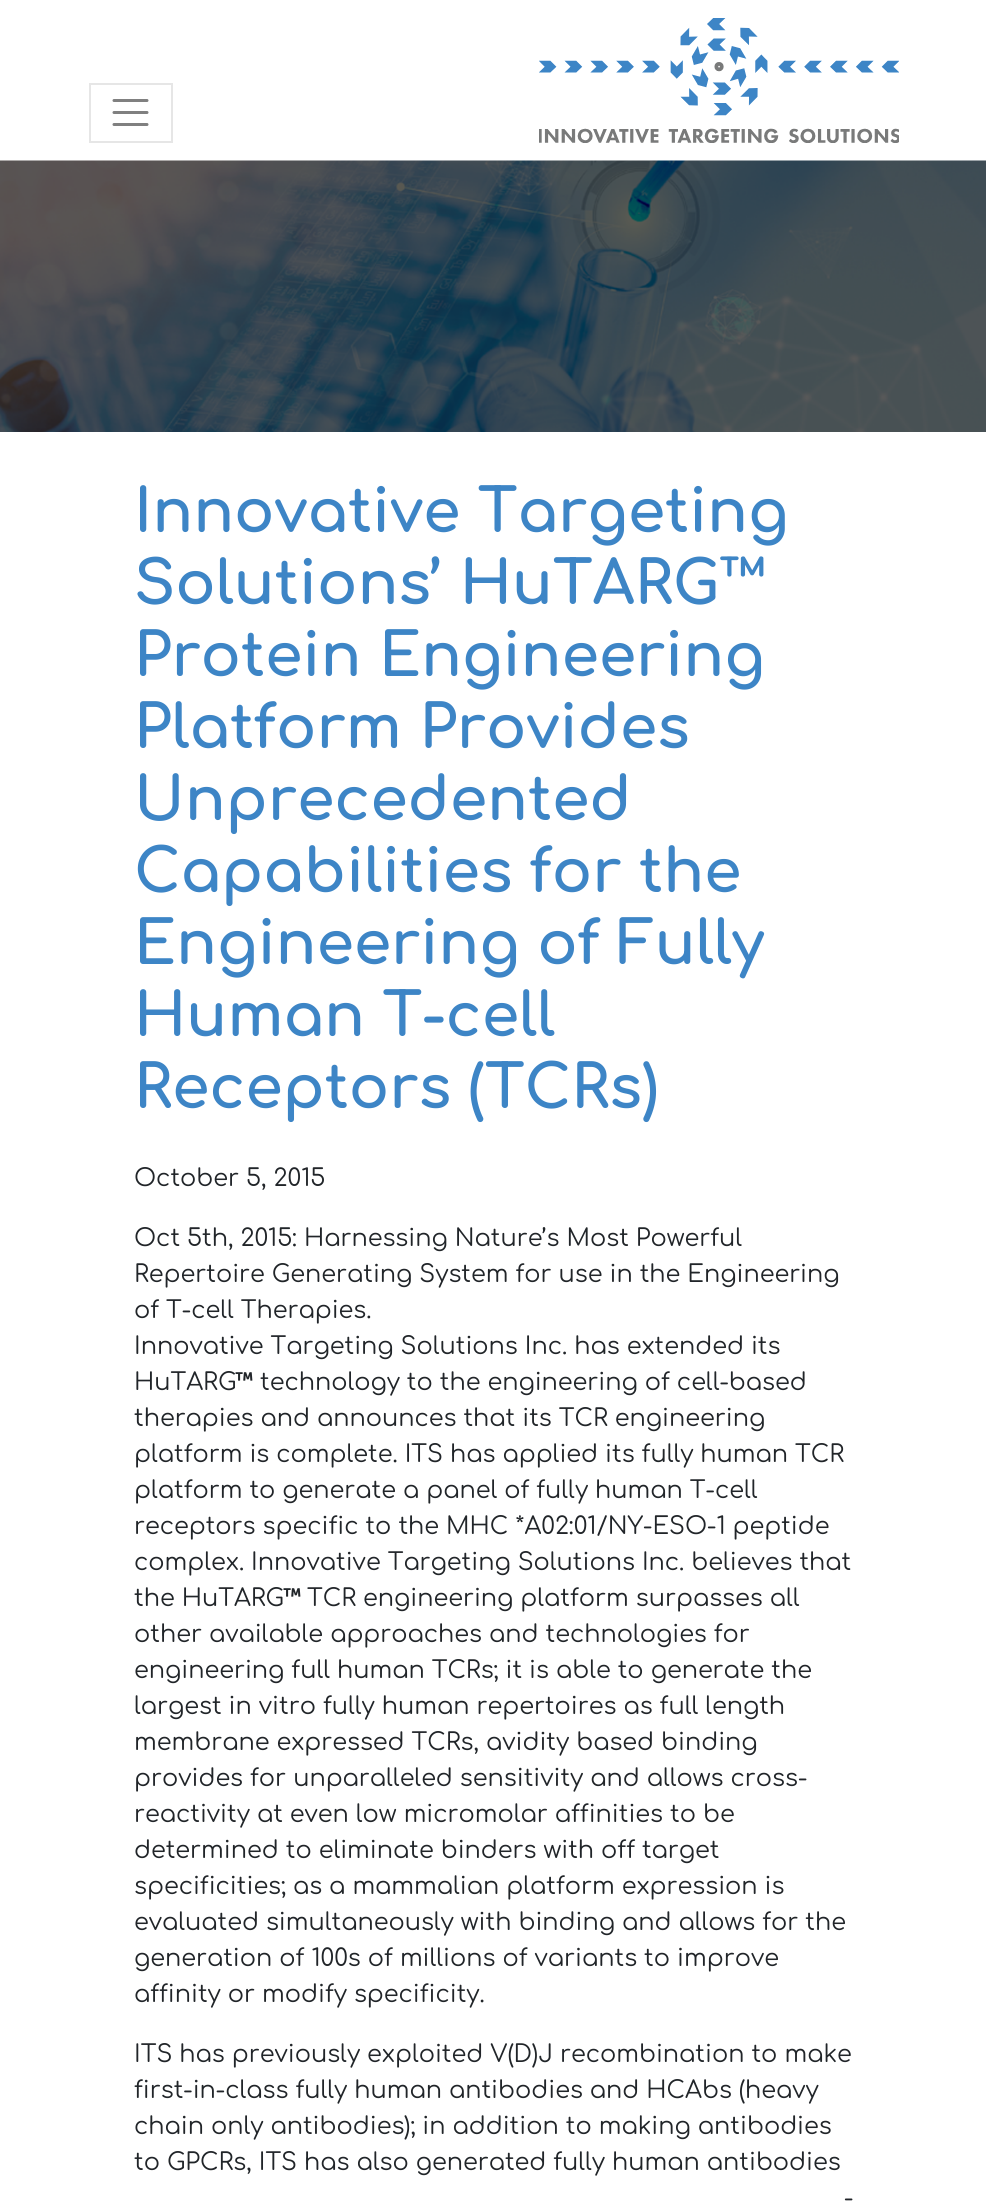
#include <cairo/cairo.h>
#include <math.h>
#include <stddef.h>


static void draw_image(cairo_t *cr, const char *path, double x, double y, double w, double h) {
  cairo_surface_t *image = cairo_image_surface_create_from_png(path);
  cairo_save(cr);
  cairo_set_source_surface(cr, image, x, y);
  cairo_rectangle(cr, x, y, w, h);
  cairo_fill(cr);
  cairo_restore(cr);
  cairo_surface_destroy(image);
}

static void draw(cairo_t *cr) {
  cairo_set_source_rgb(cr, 1, 1, 1);
  cairo_paint(cr);
  cairo_rectangle(cr, 90, 84, 82, 58);
  cairo_set_source_rgb(cr, 230 / 255.0, 230 / 255.0, 230 / 255.0);
  cairo_stroke(cr);
  cairo_new_path(cr);
  cairo_move_to(cr, 114, 100.5);
  cairo_line_to(cr, 147, 100.5);
  cairo_move_to(cr, 114, 112.5);
  cairo_line_to(cr, 147, 112.5);
  cairo_move_to(cr, 114, 124.5);
  cairo_line_to(cr, 147, 124.5);
  cairo_set_source_rgb(cr, 128 / 255.0, 128 / 255.0, 128 / 255.0);
  cairo_set_line_width(cr, 3);
  cairo_set_line_cap(cr, CAIRO_LINE_CAP_ROUND);
  cairo_stroke(cr);
  draw_image(cr, "images/1.png", 539, 18, 360, 125);
  draw_image(cr, "images/2.png", 0, 160, 986, 272);
  draw_image(cr, "images/3.png", 235, 1372, 18, 9);
  draw_image(cr, "images/3.png", 283, 1588, 18, 9);
  cairo_select_font_face(cr, "Comfortaa", CAIRO_FONT_SLANT_NORMAL, CAIRO_FONT_WEIGHT_BOLD);
  cairo_set_font_size(cr, 60);
  cairo_set_source_rgb(cr, 61 / 255.0, 133 / 255.0, 198 / 255.0);
  cairo_move_to(cr, 134, 532);
  cairo_show_text(cr, "Innovative Targeting");
  cairo_move_to(cr, 134, 604);
  cairo_show_text(cr, "Solutions’ HuTARG™");
  cairo_move_to(cr, 134, 676);
  cairo_show_text(cr, "Protein Engineering");
  cairo_move_to(cr, 134, 748);
  cairo_show_text(cr, "Platform Provides");
  cairo_move_to(cr, 134, 820);
  cairo_show_text(cr, "Unprecedented");
  cairo_move_to(cr, 134, 892);
  cairo_show_text(cr, "Capabilities for the");
  cairo_move_to(cr, 134, 964);
  cairo_show_text(cr, "Engineering of Fully");
  cairo_move_to(cr, 134, 1036);
  cairo_show_text(cr, "Human T-cell");
  cairo_move_to(cr, 134, 1108);
  cairo_show_text(cr, "Receptors (TCRs)");
  cairo_select_font_face(cr, "Comfortaa", CAIRO_FONT_SLANT_NORMAL, CAIRO_FONT_WEIGHT_NORMAL);
  cairo_set_font_size(cr, 24);
  cairo_set_source_rgb(cr, 33 / 255.0, 37 / 255.0, 41 / 255.0);
  cairo_move_to(cr, 134, 1186);
  cairo_show_text(cr, "October 5, 2015");
  cairo_move_to(cr, 134, 1246);
  cairo_show_text(cr, "Oct 5th, 2015: Harnessing Nature’s Most Powerful");
  cairo_move_to(cr, 134, 1282);
  cairo_show_text(cr, "Repertoire Generating System for use in the Engineering");
  cairo_move_to(cr, 134, 1318);
  cairo_show_text(cr, "of T-cell Therapies.");
  cairo_move_to(cr, 134, 1354);
  cairo_show_text(cr, "Innovative Targeting Solutions Inc. has extended its");
  cairo_move_to(cr, 134, 1390);
  cairo_show_text(cr, "HuTARG");
  cairo_move_to(cr, 260, 1390);
  cairo_show_text(cr, "technology to the engineering of cell-based");
  cairo_move_to(cr, 134, 1426);
  cairo_show_text(cr, "therapies and announces that its TCR engineering");
  cairo_move_to(cr, 134, 1462);
  cairo_show_text(cr, "platform is complete. ITS has applied its fully human TCR");
  cairo_move_to(cr, 134, 1498);
  cairo_show_text(cr, "platform to generate a panel of fully human T-cell");
  cairo_move_to(cr, 134, 1534);
  cairo_show_text(cr, "receptors specific to the MHC *A02:01/NY-ESO-1 peptide");
  cairo_move_to(cr, 134, 1570);
  cairo_show_text(cr, "complex. Innovative Targeting Solutions Inc. believes that");
  cairo_move_to(cr, 134, 1606);
  cairo_show_text(cr, "the HuTARG");
  cairo_move_to(cr, 307, 1606);
  cairo_show_text(cr, "TCR engineering platform surpasses all");
  cairo_move_to(cr, 134, 1642);
  cairo_show_text(cr, "other available approaches and technologies for");
  cairo_move_to(cr, 134, 1678);
  cairo_show_text(cr, "engineering full human TCRs; it is able to generate the");
  cairo_move_to(cr, 134, 1714);
  cairo_show_text(cr, "largest in vitro fully human repertoires as full length");
  cairo_move_to(cr, 134, 1750);
  cairo_show_text(cr, "membrane expressed TCRs, avidity based binding");
  cairo_move_to(cr, 134, 1786);
  cairo_show_text(cr, "provides for unparalleled sensitivity and allows cross-");
  cairo_move_to(cr, 134, 1822);
  cairo_show_text(cr, "reactivity at even low micromolar affinities to be");
  cairo_move_to(cr, 134, 1858);
  cairo_show_text(cr, "determined to eliminate binders with off target");
  cairo_move_to(cr, 134, 1894);
  cairo_show_text(cr, "specificities; as a mammalian platform expression is");
  cairo_move_to(cr, 134, 1930);
  cairo_show_text(cr, "evaluated simultaneously with binding and allows for the");
  cairo_move_to(cr, 134, 1966);
  cairo_show_text(cr, "generation of 100s of millions of variants to improve");
  cairo_move_to(cr, 134, 2002);
  cairo_show_text(cr, "affinity or modify specificity.");
  cairo_move_to(cr, 134, 2062);
  cairo_show_text(cr, "ITS has previously exploited V(D)J recombination to make");
  cairo_move_to(cr, 134, 2098);
  cairo_show_text(cr, "first-in-class fully human antibodies and HCAbs (heavy");
  cairo_move_to(cr, 134, 2134);
  cairo_show_text(cr, "chain only antibodies); in addition to making antibodies");
  cairo_move_to(cr, 134, 2170);
  cairo_show_text(cr, "to GPCRs, ITS has also generated fully human antibodies");
  cairo_move_to(cr, 844, 2206);
  cairo_show_text(cr, "-");
}

int main(void) {
  cairo_surface_t *surface = cairo_image_surface_create(CAIRO_FORMAT_RGB24, 986, 2201);
  cairo_t *cr = cairo_create(surface);
  cairo_font_options_t *options = cairo_font_options_create();
  cairo_font_options_set_hint_metrics(options, CAIRO_HINT_METRICS_OFF);
  cairo_font_options_set_hint_style(options, CAIRO_HINT_STYLE_NONE);
  cairo_set_font_options(cr, options);
  cairo_set_miter_limit(cr, 4);
  draw(cr);
  cairo_surface_write_to_png(surface, "out.png");
  cairo_font_options_destroy(options);
  cairo_destroy(cr);
  cairo_surface_destroy(surface);
  return 0;
}
